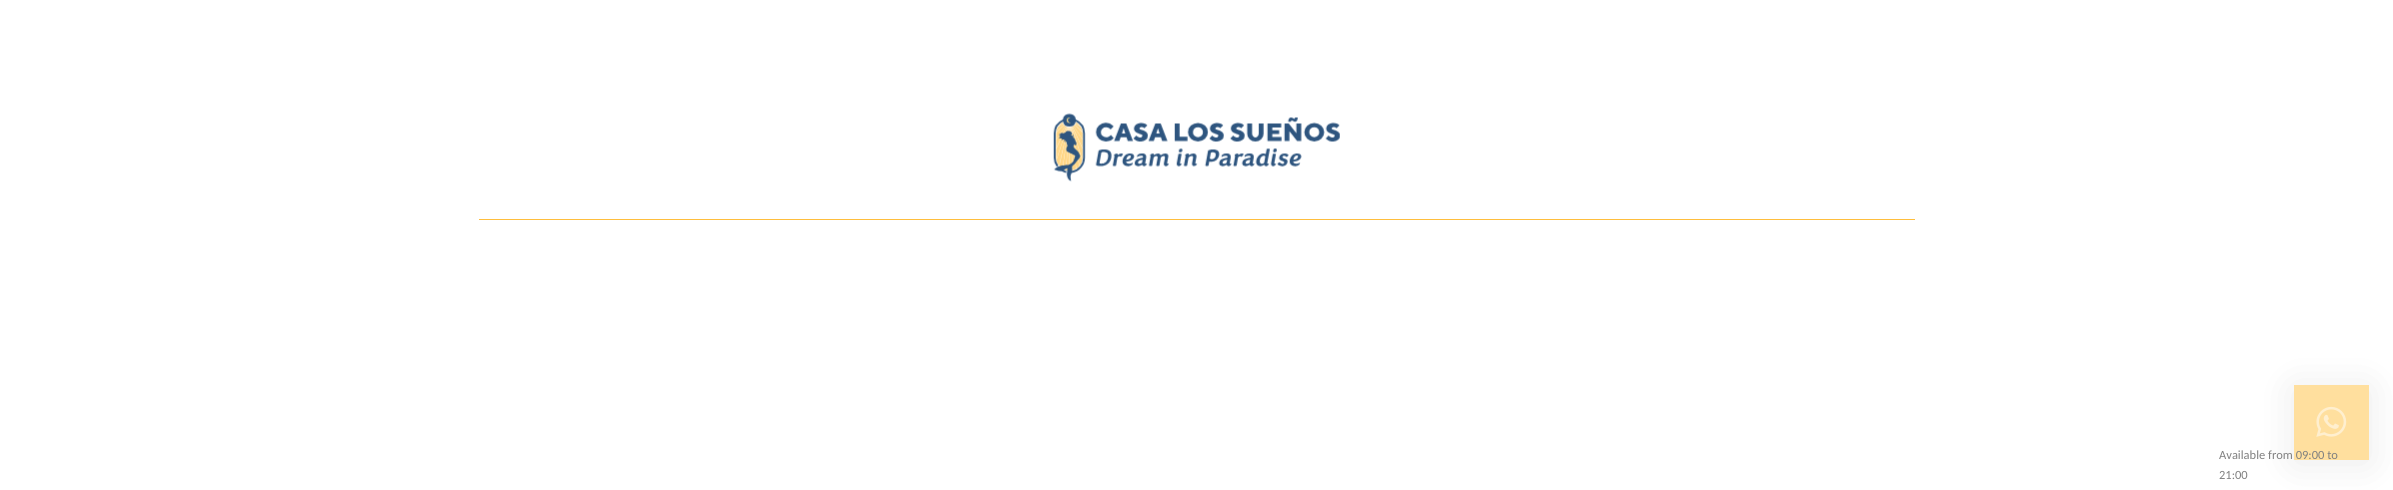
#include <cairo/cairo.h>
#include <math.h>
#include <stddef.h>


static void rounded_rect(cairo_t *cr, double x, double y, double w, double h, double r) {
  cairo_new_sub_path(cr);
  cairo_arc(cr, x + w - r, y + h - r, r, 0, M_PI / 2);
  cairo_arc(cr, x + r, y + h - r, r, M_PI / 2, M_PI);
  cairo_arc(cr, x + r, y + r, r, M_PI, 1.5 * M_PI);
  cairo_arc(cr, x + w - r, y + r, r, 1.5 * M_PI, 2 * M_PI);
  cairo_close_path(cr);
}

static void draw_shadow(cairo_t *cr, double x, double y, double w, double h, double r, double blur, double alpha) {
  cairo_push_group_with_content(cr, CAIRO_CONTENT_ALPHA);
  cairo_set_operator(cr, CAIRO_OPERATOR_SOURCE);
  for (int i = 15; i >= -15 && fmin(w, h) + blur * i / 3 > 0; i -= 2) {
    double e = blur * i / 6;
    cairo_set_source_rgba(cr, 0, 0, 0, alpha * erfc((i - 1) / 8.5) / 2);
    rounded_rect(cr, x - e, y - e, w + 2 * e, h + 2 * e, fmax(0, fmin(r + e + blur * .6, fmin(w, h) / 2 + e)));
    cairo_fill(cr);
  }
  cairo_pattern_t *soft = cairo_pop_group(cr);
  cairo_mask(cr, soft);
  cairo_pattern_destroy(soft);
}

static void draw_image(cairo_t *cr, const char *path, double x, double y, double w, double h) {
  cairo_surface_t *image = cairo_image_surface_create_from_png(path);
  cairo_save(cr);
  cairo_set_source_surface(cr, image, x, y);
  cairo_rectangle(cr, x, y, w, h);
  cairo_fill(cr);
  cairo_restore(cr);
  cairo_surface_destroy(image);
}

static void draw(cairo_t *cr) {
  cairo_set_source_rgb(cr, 1, 1, 1);
  cairo_paint(cr);
  draw_image(cr, "images/1.png", 1053, 113, 287, 69);
  cairo_set_source_rgb(cr, 1, 190 / 255.0, 61 / 255.0);
  cairo_rectangle(cr, 479, 219, 1436, 1);
  cairo_fill(cr);
  cairo_set_source_rgb(cr, 128 / 255.0, 128 / 255.0, 128 / 255.0);
  draw_shadow(cr, 2294, 388, 75, 75, 0, 20, 0.16);
  cairo_set_source_rgb(cr, 1, 223 / 255.0, 158 / 255.0);
  cairo_rectangle(cr, 2294, 385, 75, 75);
  cairo_fill(cr);
  draw_image(cr, "images/2.png", 2316, 406, 31, 31);
  cairo_select_font_face(cr, "Carlito", CAIRO_FONT_SLANT_NORMAL, CAIRO_FONT_WEIGHT_NORMAL);
  cairo_set_font_size(cr, 12.5);
  cairo_set_source_rgb(cr, 128 / 255.0, 128 / 255.0, 128 / 255.0);
  cairo_move_to(cr, 2219, 459);
  cairo_show_text(cr, "Available from 09:00 to");
  cairo_move_to(cr, 2219, 479);
  cairo_show_text(cr, "21:00");
}

int main(void) {
  cairo_surface_t *surface = cairo_image_surface_create(CAIRO_FORMAT_RGB24, 2393, 490);
  cairo_t *cr = cairo_create(surface);
  cairo_font_options_t *options = cairo_font_options_create();
  cairo_font_options_set_hint_metrics(options, CAIRO_HINT_METRICS_OFF);
  cairo_font_options_set_hint_style(options, CAIRO_HINT_STYLE_NONE);
  cairo_set_font_options(cr, options);
  cairo_set_miter_limit(cr, 4);
  draw(cr);
  cairo_surface_write_to_png(surface, "out.png");
  cairo_font_options_destroy(options);
  cairo_destroy(cr);
  cairo_surface_destroy(surface);
  return 0;
}
